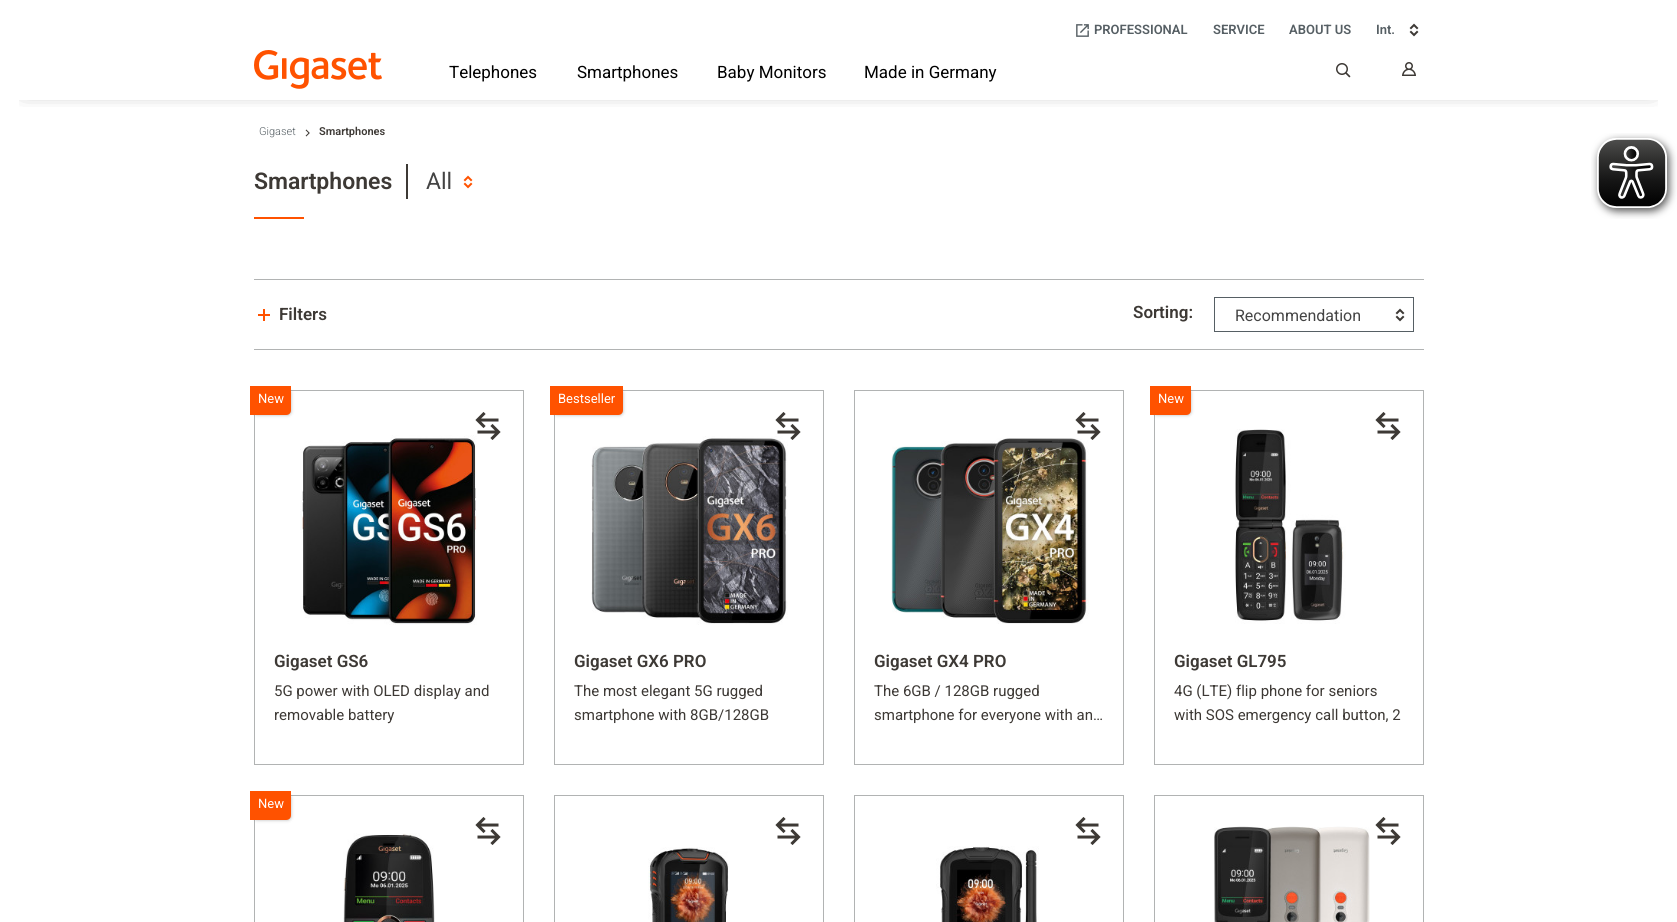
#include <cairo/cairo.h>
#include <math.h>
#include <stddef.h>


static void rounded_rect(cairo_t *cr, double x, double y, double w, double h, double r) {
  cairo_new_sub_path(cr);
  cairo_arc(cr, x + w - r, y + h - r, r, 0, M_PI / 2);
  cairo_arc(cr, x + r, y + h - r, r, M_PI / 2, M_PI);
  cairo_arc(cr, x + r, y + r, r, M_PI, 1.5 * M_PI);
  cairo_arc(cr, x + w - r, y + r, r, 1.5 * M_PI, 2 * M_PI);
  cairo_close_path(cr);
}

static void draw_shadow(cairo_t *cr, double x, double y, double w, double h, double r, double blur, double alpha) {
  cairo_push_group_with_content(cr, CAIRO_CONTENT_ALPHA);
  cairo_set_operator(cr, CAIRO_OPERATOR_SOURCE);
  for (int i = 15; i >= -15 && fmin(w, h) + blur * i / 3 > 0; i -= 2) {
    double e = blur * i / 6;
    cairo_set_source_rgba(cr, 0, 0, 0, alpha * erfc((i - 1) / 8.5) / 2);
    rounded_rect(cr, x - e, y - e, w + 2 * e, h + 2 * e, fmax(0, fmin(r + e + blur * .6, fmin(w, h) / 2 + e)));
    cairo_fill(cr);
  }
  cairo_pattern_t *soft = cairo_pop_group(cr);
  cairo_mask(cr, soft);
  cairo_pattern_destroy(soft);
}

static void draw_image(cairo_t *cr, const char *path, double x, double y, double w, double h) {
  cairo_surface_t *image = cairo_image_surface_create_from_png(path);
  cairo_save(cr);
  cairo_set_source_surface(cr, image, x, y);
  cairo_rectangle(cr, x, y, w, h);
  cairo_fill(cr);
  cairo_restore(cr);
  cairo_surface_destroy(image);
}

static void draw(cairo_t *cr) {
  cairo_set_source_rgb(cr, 1, 1, 1);
  cairo_paint(cr);
  cairo_save(cr);
  cairo_rectangle(cr, 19, 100, 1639, 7);
  cairo_clip(cr);
  cairo_set_source_rgb(cr, 0, 0, 0);
  draw_shadow(cr, 25, 34, 1627, 50, 0, 11, 1);
  cairo_restore(cr);
  draw_image(cr, "images/1.png", 1076, 24, 13, 13);
  draw_image(cr, "images/2.png", 1409, 23, 10, 14);
  draw_image(cr, "images/3.png", 254, 50, 128, 39);
  draw_image(cr, "images/4.png", 1336, 63, 15, 15);
  draw_image(cr, "images/5.png", 1402, 62, 14, 14);
  draw_image(cr, "images/6.png", 305, 129, 5, 8);
  cairo_set_source_rgb(cr, 61 / 255.0, 57 / 255.0, 53 / 255.0);
  cairo_rectangle(cr, 406, 164, 2, 35);
  cairo_fill(cr);
  cairo_set_source_rgb(cr, 1, 82 / 255.0, 0);
  cairo_rectangle(cr, 254, 217, 50, 2);
  cairo_fill(cr);
  draw_image(cr, "images/7.png", 463, 175, 10, 14);
  cairo_set_source_rgb(cr, 177 / 255.0, 179 / 255.0, 179 / 255.0);
  cairo_rectangle(cr, 254, 279, 1170, 1);
  cairo_fill(cr);
  draw_image(cr, "images/8.png", 258, 309, 12, 12);
  cairo_rectangle(cr, 1214.5, 297.5, 199, 34);
  cairo_set_source_rgb(cr, 86 / 255.0, 95 / 255.0, 100 / 255.0);
  cairo_set_line_width(cr, 1);
  cairo_stroke(cr);
  draw_image(cr, "images/2.png", 1395, 308, 10, 14);
  cairo_set_source_rgb(cr, 177 / 255.0, 179 / 255.0, 179 / 255.0);
  cairo_rectangle(cr, 254, 349, 1170, 1);
  cairo_fill(cr);
  cairo_rectangle(cr, 254.5, 390.5, 269, 374);
  cairo_stroke(cr);
  cairo_set_source_rgb(cr, 0, 0, 0);
  draw_shadow(cr, 255, 391, 35, 23, 2, 2, 0.5);
  cairo_set_source_rgb(cr, 1, 82 / 255.0, 0);
  cairo_new_path(cr);
  cairo_move_to(cr, 250, 386);
  cairo_line_to(cr, 291, 386);
  cairo_line_to(cr, 291, 410);
  cairo_curve_to(cr, 291, 413, 289, 415, 286, 415);
  cairo_line_to(cr, 250, 415);
  cairo_close_path(cr);
  cairo_fill(cr);
  draw_image(cr, "images/10.png", 300, 435, 177, 190);
  draw_image(cr, "images/9.png", 475, 412, 26, 28);
  cairo_rectangle(cr, 554.5, 390.5, 269, 374);
  cairo_set_source_rgb(cr, 177 / 255.0, 179 / 255.0, 179 / 255.0);
  cairo_stroke(cr);
  cairo_set_source_rgb(cr, 0, 0, 0);
  draw_shadow(cr, 555, 391, 67, 23, 2, 2, 0.5);
  cairo_set_source_rgb(cr, 1, 82 / 255.0, 0);
  cairo_new_path(cr);
  cairo_move_to(cr, 550, 386);
  cairo_line_to(cr, 623, 386);
  cairo_line_to(cr, 623, 410);
  cairo_curve_to(cr, 623, 413, 621, 415, 618, 415);
  cairo_line_to(cr, 550, 415);
  cairo_close_path(cr);
  cairo_fill(cr);
  draw_image(cr, "images/12.png", 591, 436, 197, 189);
  draw_image(cr, "images/11.png", 775, 412, 26, 28);
  cairo_rectangle(cr, 854.5, 390.5, 269, 374);
  cairo_set_source_rgb(cr, 177 / 255.0, 179 / 255.0, 179 / 255.0);
  cairo_stroke(cr);
  draw_image(cr, "images/14.png", 891, 438, 198, 186);
  draw_image(cr, "images/13.png", 1075, 412, 26, 28);
  cairo_rectangle(cr, 1154.5, 390.5, 269, 374);
  cairo_stroke(cr);
  cairo_set_source_rgb(cr, 0, 0, 0);
  draw_shadow(cr, 1155, 391, 35, 23, 2, 2, 0.5);
  cairo_set_source_rgb(cr, 1, 82 / 255.0, 0);
  cairo_new_path(cr);
  cairo_move_to(cr, 1150, 386);
  cairo_line_to(cr, 1191, 386);
  cairo_line_to(cr, 1191, 410);
  cairo_curve_to(cr, 1191, 413, 1189, 415, 1186, 415);
  cairo_line_to(cr, 1150, 415);
  cairo_close_path(cr);
  cairo_fill(cr);
  draw_image(cr, "images/15.png", 1375, 412, 26, 28);
  draw_image(cr, "images/16.png", 1235, 429, 111, 195);
  cairo_rectangle(cr, 254.5, 795.5, 269, 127);
  cairo_set_source_rgb(cr, 177 / 255.0, 179 / 255.0, 179 / 255.0);
  cairo_stroke(cr);
  cairo_set_source_rgb(cr, 0, 0, 0);
  draw_shadow(cr, 255, 796, 35, 23, 2, 2, 0.5);
  cairo_set_source_rgb(cr, 1, 82 / 255.0, 0);
  cairo_new_path(cr);
  cairo_move_to(cr, 250, 791);
  cairo_line_to(cr, 291, 791);
  cairo_line_to(cr, 291, 815);
  cairo_curve_to(cr, 291, 818, 289, 820, 286, 820);
  cairo_line_to(cr, 250, 820);
  cairo_close_path(cr);
  cairo_fill(cr);
  draw_image(cr, "images/17.png", 343, 833, 92, 89);
  draw_image(cr, "images/15.png", 475, 817, 26, 28);
  cairo_rectangle(cr, 554.5, 795.5, 269, 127);
  cairo_set_source_rgb(cr, 177 / 255.0, 179 / 255.0, 179 / 255.0);
  cairo_stroke(cr);
  draw_image(cr, "images/15.png", 775, 817, 26, 28);
  draw_image(cr, "images/18.png", 648, 847, 81, 75);
  cairo_rectangle(cr, 854.5, 795.5, 269, 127);
  cairo_stroke(cr);
  draw_image(cr, "images/15.png", 1075, 817, 26, 28);
  draw_image(cr, "images/19.png", 936, 846, 103, 76);
  cairo_rectangle(cr, 1154.5, 795.5, 269, 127);
  cairo_stroke(cr);
  draw_image(cr, "images/20.png", 1214, 826, 156, 96);
  draw_image(cr, "images/15.png", 1375, 817, 26, 28);
  draw_image(cr, "images/21.png", 1591, 133, 86, 86);
  cairo_select_font_face(cr, "Roboto SemiBold", CAIRO_FONT_SLANT_NORMAL, CAIRO_FONT_WEIGHT_NORMAL);
  cairo_set_font_size(cr, 13);
  cairo_set_source_rgb(cr, 86 / 255.0, 95 / 255.0, 100 / 255.0);
  cairo_move_to(cr, 1094, 34);
  cairo_show_text(cr, "PROFESSIONAL");
  cairo_move_to(cr, 1213, 34);
  cairo_show_text(cr, "SERVICE");
  cairo_move_to(cr, 1289, 34);
  cairo_show_text(cr, "ABOUT US");
  cairo_move_to(cr, 1376, 34);
  cairo_show_text(cr, "Int.");
  cairo_select_font_face(cr, "Roboto", CAIRO_FONT_SLANT_NORMAL, CAIRO_FONT_WEIGHT_NORMAL);
  cairo_set_font_size(cr, 17);
  cairo_set_source_rgb(cr, 0, 0, 0);
  cairo_move_to(cr, 449, 78);
  cairo_show_text(cr, "Telephones");
  cairo_move_to(cr, 577, 78);
  cairo_show_text(cr, "Smartphones");
  cairo_move_to(cr, 717, 78);
  cairo_show_text(cr, "Baby Monitors");
  cairo_move_to(cr, 864, 78);
  cairo_show_text(cr, "Made in Germany");
  cairo_select_font_face(cr, "Roboto Light", CAIRO_FONT_SLANT_NORMAL, CAIRO_FONT_WEIGHT_NORMAL);
  cairo_set_font_size(cr, 11);
  cairo_set_source_rgb(cr, 86 / 255.0, 95 / 255.0, 100 / 255.0);
  cairo_move_to(cr, 259, 135);
  cairo_show_text(cr, "Gigaset");
  cairo_select_font_face(cr, "Roboto SemiBold", CAIRO_FONT_SLANT_NORMAL, CAIRO_FONT_WEIGHT_NORMAL);
  cairo_set_source_rgb(cr, 61 / 255.0, 57 / 255.0, 53 / 255.0);
  cairo_move_to(cr, 319, 135);
  cairo_show_text(cr, "Smartphones");
  cairo_set_font_size(cr, 23);
  cairo_move_to(cr, 254, 189);
  cairo_show_text(cr, "Smartphones");
  cairo_select_font_face(cr, "Roboto", CAIRO_FONT_SLANT_NORMAL, CAIRO_FONT_WEIGHT_NORMAL);
  cairo_set_source_rgb(cr, 68 / 255.0, 68 / 255.0, 68 / 255.0);
  cairo_move_to(cr, 426, 189);
  cairo_show_text(cr, "All");
  cairo_select_font_face(cr, "Roboto SemiBold", CAIRO_FONT_SLANT_NORMAL, CAIRO_FONT_WEIGHT_NORMAL);
  cairo_set_font_size(cr, 17);
  cairo_set_source_rgb(cr, 61 / 255.0, 57 / 255.0, 53 / 255.0);
  cairo_move_to(cr, 279, 320);
  cairo_show_text(cr, "Filters");
  cairo_move_to(cr, 1133, 318);
  cairo_show_text(cr, "Sorting:");
  cairo_select_font_face(cr, "Roboto", CAIRO_FONT_SLANT_NORMAL, CAIRO_FONT_WEIGHT_NORMAL);
  cairo_set_font_size(cr, 16);
  cairo_set_source_rgb(cr, 68 / 255.0, 68 / 255.0, 68 / 255.0);
  cairo_move_to(cr, 1235, 321);
  cairo_show_text(cr, "Recommendation");
  cairo_set_font_size(cr, 13);
  cairo_set_source_rgb(cr, 1, 1, 1);
  cairo_move_to(cr, 258, 403);
  cairo_show_text(cr, "New");
  cairo_select_font_face(cr, "Roboto SemiBold", CAIRO_FONT_SLANT_NORMAL, CAIRO_FONT_WEIGHT_NORMAL);
  cairo_set_font_size(cr, 17);
  cairo_set_source_rgb(cr, 61 / 255.0, 57 / 255.0, 53 / 255.0);
  cairo_move_to(cr, 274, 667);
  cairo_show_text(cr, "Gigaset GS6");
  cairo_select_font_face(cr, "Roboto", CAIRO_FONT_SLANT_NORMAL, CAIRO_FONT_WEIGHT_NORMAL);
  cairo_set_font_size(cr, 15);
  cairo_move_to(cr, 274, 696);
  cairo_show_text(cr, "5G power with OLED display and");
  cairo_move_to(cr, 274, 720);
  cairo_show_text(cr, "removable battery");
  cairo_set_font_size(cr, 13);
  cairo_set_source_rgb(cr, 1, 1, 1);
  cairo_move_to(cr, 558, 403);
  cairo_show_text(cr, "Bestseller");
  cairo_select_font_face(cr, "Roboto SemiBold", CAIRO_FONT_SLANT_NORMAL, CAIRO_FONT_WEIGHT_NORMAL);
  cairo_set_font_size(cr, 17);
  cairo_set_source_rgb(cr, 61 / 255.0, 57 / 255.0, 53 / 255.0);
  cairo_move_to(cr, 574, 667);
  cairo_show_text(cr, "Gigaset GX6 PRO");
  cairo_select_font_face(cr, "Roboto", CAIRO_FONT_SLANT_NORMAL, CAIRO_FONT_WEIGHT_NORMAL);
  cairo_set_font_size(cr, 15);
  cairo_move_to(cr, 574, 696);
  cairo_show_text(cr, "The most elegant 5G rugged");
  cairo_move_to(cr, 574, 720);
  cairo_show_text(cr, "smartphone with 8GB/128GB");
  cairo_select_font_face(cr, "Roboto SemiBold", CAIRO_FONT_SLANT_NORMAL, CAIRO_FONT_WEIGHT_NORMAL);
  cairo_set_font_size(cr, 17);
  cairo_move_to(cr, 874, 667);
  cairo_show_text(cr, "Gigaset GX4 PRO");
  cairo_select_font_face(cr, "Roboto", CAIRO_FONT_SLANT_NORMAL, CAIRO_FONT_WEIGHT_NORMAL);
  cairo_set_font_size(cr, 15);
  cairo_move_to(cr, 874, 696);
  cairo_show_text(cr, "The 6GB / 128GB rugged");
  cairo_move_to(cr, 874, 720);
  cairo_show_text(cr, "smartphone for everyone with an…");
  cairo_set_font_size(cr, 13);
  cairo_set_source_rgb(cr, 1, 1, 1);
  cairo_move_to(cr, 1158, 403);
  cairo_show_text(cr, "New");
  cairo_select_font_face(cr, "Roboto SemiBold", CAIRO_FONT_SLANT_NORMAL, CAIRO_FONT_WEIGHT_NORMAL);
  cairo_set_font_size(cr, 17);
  cairo_set_source_rgb(cr, 61 / 255.0, 57 / 255.0, 53 / 255.0);
  cairo_move_to(cr, 1174, 667);
  cairo_show_text(cr, "Gigaset GL795");
  cairo_select_font_face(cr, "Roboto", CAIRO_FONT_SLANT_NORMAL, CAIRO_FONT_WEIGHT_NORMAL);
  cairo_set_font_size(cr, 15);
  cairo_move_to(cr, 1174, 696);
  cairo_show_text(cr, "4G (LTE) flip phone for seniors");
  cairo_move_to(cr, 1174, 720);
  cairo_show_text(cr, "with SOS emergency call button, 2");
  cairo_set_font_size(cr, 13);
  cairo_set_source_rgb(cr, 1, 1, 1);
  cairo_move_to(cr, 258, 808);
  cairo_show_text(cr, "New");
}

int main(void) {
  cairo_surface_t *surface = cairo_image_surface_create(CAIRO_FORMAT_RGB24, 1677, 922);
  cairo_t *cr = cairo_create(surface);
  cairo_font_options_t *options = cairo_font_options_create();
  cairo_font_options_set_hint_metrics(options, CAIRO_HINT_METRICS_OFF);
  cairo_font_options_set_hint_style(options, CAIRO_HINT_STYLE_NONE);
  cairo_set_font_options(cr, options);
  cairo_set_miter_limit(cr, 4);
  draw(cr);
  cairo_surface_write_to_png(surface, "out.png");
  cairo_font_options_destroy(options);
  cairo_destroy(cr);
  cairo_surface_destroy(surface);
  return 0;
}
